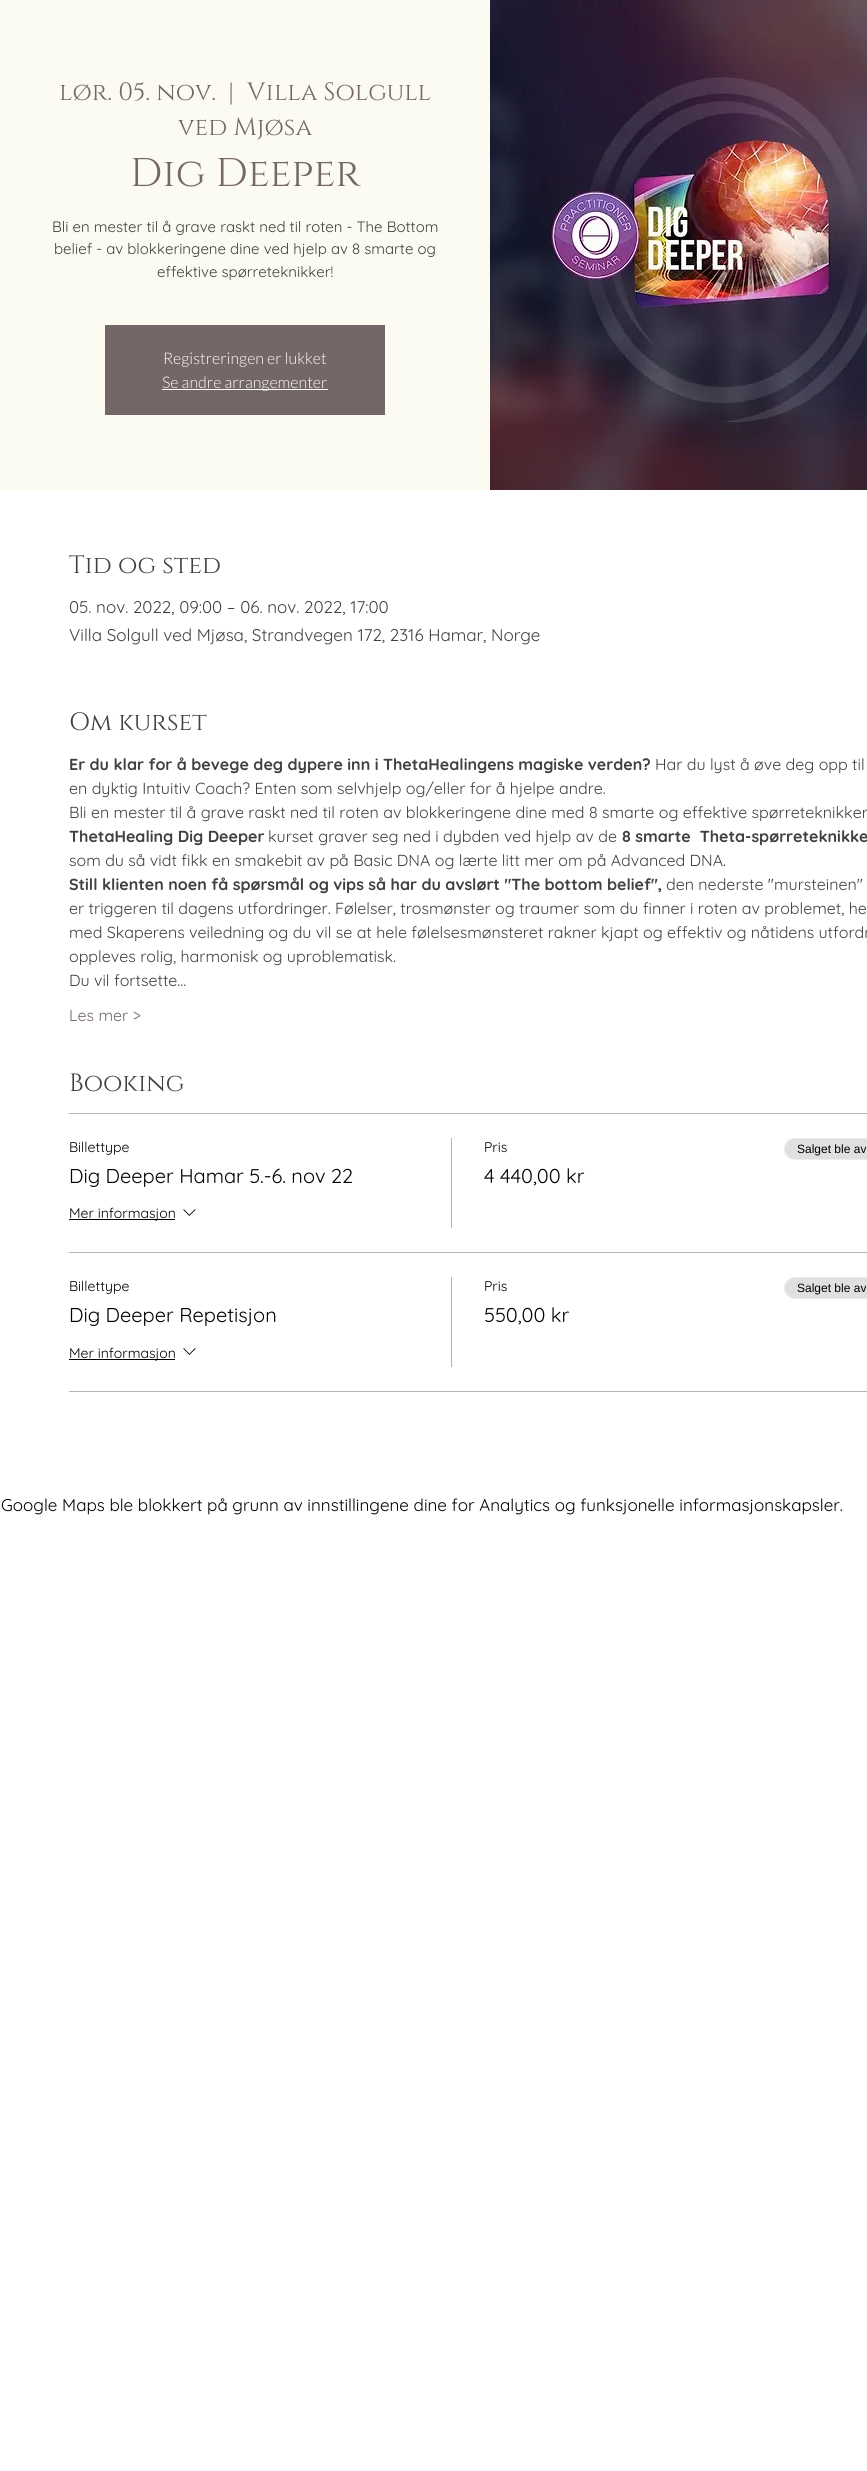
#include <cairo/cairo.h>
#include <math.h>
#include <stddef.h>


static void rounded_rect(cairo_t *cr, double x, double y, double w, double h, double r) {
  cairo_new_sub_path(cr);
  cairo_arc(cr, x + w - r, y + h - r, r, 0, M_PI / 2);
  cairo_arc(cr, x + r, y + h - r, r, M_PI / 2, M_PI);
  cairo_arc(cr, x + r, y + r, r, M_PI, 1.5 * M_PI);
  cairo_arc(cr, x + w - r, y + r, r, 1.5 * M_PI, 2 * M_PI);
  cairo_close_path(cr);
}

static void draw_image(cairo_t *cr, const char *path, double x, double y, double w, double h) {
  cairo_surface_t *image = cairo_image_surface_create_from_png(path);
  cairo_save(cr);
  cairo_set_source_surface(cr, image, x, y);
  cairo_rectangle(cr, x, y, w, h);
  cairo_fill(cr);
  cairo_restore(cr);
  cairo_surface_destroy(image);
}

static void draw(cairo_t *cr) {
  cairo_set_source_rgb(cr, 1, 1, 1);
  cairo_paint(cr);
  cairo_set_source_rgb(cr, 252 / 255.0, 251 / 255.0, 241 / 255.0);
  cairo_rectangle(cr, 0, 0, 490, 490);
  cairo_fill(cr);
  cairo_set_source_rgb(cr, 117 / 255.0, 103 / 255.0, 103 / 255.0);
  cairo_rectangle(cr, 105, 325, 280, 90);
  cairo_fill(cr);
  cairo_set_source_rgb(cr, 1, 1, 1);
  cairo_rectangle(cr, 162, 389, 166, 1);
  cairo_fill(cr);
  draw_image(cr, "images/1.png", 490, 0, 377, 490);
  cairo_set_source_rgb(cr, 179 / 255.0, 179 / 255.0, 179 / 255.0);
  cairo_rectangle(cr, 69, 1113, 798, 1);
  cairo_fill(cr);
  cairo_rectangle(cr, 69, 1252, 798, 1);
  cairo_fill(cr);
  cairo_set_source_rgb(cr, 0, 0, 0);
  cairo_rectangle(cr, 69, 1219, 106, 1);
  cairo_fill(cr);
  draw_image(cr, "images/2.png", 183, 1209, 13, 7);
  cairo_set_source_rgb(cr, 179 / 255.0, 179 / 255.0, 179 / 255.0);
  cairo_rectangle(cr, 451, 1138, 1, 90);
  cairo_fill(cr);
  cairo_set_source_rgb(cr, 224 / 255.0, 224 / 255.0, 224 / 255.0);
  rounded_rect(cr, 784, 1138, 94, 22, 11);
  cairo_fill(cr);
  rounded_rect(cr, 784.5, 1138.5, 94, 21, 10.5);
  cairo_set_source_rgba(cr, 1, 1, 1, 0.4);
  cairo_set_line_width(cr, 1);
  cairo_stroke(cr);
  cairo_set_source_rgb(cr, 179 / 255.0, 179 / 255.0, 179 / 255.0);
  cairo_rectangle(cr, 69, 1391, 798, 1);
  cairo_fill(cr);
  cairo_set_source_rgb(cr, 0, 0, 0);
  cairo_rectangle(cr, 69, 1359, 106, 1);
  cairo_fill(cr);
  draw_image(cr, "images/2.png", 183, 1348, 13, 7);
  cairo_set_source_rgb(cr, 179 / 255.0, 179 / 255.0, 179 / 255.0);
  cairo_rectangle(cr, 451, 1277, 1, 90);
  cairo_fill(cr);
  cairo_set_source_rgb(cr, 224 / 255.0, 224 / 255.0, 224 / 255.0);
  rounded_rect(cr, 784, 1277, 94, 22, 11);
  cairo_fill(cr);
  rounded_rect(cr, 784.5, 1277.5, 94, 21, 10.5);
  cairo_set_source_rgba(cr, 1, 1, 1, 0.4);
  cairo_stroke(cr);
  cairo_select_font_face(cr, "Cinzel", CAIRO_FONT_SLANT_NORMAL, CAIRO_FONT_WEIGHT_NORMAL);
  cairo_set_font_size(cr, 25);
  cairo_set_source_rgb(cr, 117 / 255.0, 103 / 255.0, 103 / 255.0);
  cairo_move_to(cr, 59, 100);
  cairo_show_text(cr, "lør. 05. nov.");
  cairo_move_to(cr, 228, 100);
  cairo_show_text(cr, "|");
  cairo_move_to(cr, 247, 100);
  cairo_show_text(cr, "Villa Solgull");
  cairo_move_to(cr, 178, 135);
  cairo_show_text(cr, "ved Mjøsa");
  cairo_set_font_size(cr, 40);
  cairo_move_to(cr, 130, 186);
  cairo_show_text(cr, "Dig Deeper");
  cairo_select_font_face(cr, "Quicksand", CAIRO_FONT_SLANT_NORMAL, CAIRO_FONT_WEIGHT_NORMAL);
  cairo_set_font_size(cr, 15);
  cairo_set_source_rgb(cr, 64 / 255.0, 64 / 255.0, 64 / 255.0);
  cairo_move_to(cr, 52, 232);
  cairo_show_text(cr, "Bli en mester til å grave raskt ned til roten - The Bottom");
  cairo_move_to(cr, 54, 254);
  cairo_show_text(cr, "belief - av blokkeringene dine ved hjelp av 8 smarte og");
  cairo_move_to(cr, 157, 277);
  cairo_show_text(cr, "effektive spørreteknikker!");
  cairo_select_font_face(cr, "Lato Light", CAIRO_FONT_SLANT_NORMAL, CAIRO_FONT_WEIGHT_NORMAL);
  cairo_set_font_size(cr, 16);
  cairo_set_source_rgb(cr, 1, 1, 1);
  cairo_move_to(cr, 163, 364);
  cairo_show_text(cr, "Registreringen er lukket");
  cairo_move_to(cr, 162, 388);
  cairo_show_text(cr, "Se andre arrangementer");
  cairo_select_font_face(cr, "Cinzel", CAIRO_FONT_SLANT_NORMAL, CAIRO_FONT_WEIGHT_NORMAL);
  cairo_set_font_size(cr, 25);
  cairo_set_source_rgb(cr, 64 / 255.0, 64 / 255.0, 64 / 255.0);
  cairo_move_to(cr, 69, 573);
  cairo_show_text(cr, "Tid og sted");
  cairo_select_font_face(cr, "Quicksand", CAIRO_FONT_SLANT_NORMAL, CAIRO_FONT_WEIGHT_NORMAL);
  cairo_set_font_size(cr, 17);
  cairo_move_to(cr, 69, 613);
  cairo_show_text(cr, "05. nov. 2022, 09:00 – 06. nov. 2022, 17:00");
  cairo_move_to(cr, 69, 641);
  cairo_show_text(cr, "Villa Solgull ved Mjøsa, Strandvegen 172, 2316 Hamar, Norge");
  cairo_select_font_face(cr, "Cinzel", CAIRO_FONT_SLANT_NORMAL, CAIRO_FONT_WEIGHT_NORMAL);
  cairo_set_font_size(cr, 25);
  cairo_move_to(cr, 69, 730);
  cairo_show_text(cr, "Om kurset");
  cairo_select_font_face(cr, "Quicksand", CAIRO_FONT_SLANT_NORMAL, CAIRO_FONT_WEIGHT_BOLD);
  cairo_set_font_size(cr, 16);
  cairo_move_to(cr, 69, 770);
  cairo_show_text(cr, "Er du klar for å bevege deg dypere inn i ThetaHealingens magiske verden?");
  cairo_select_font_face(cr, "Quicksand", CAIRO_FONT_SLANT_NORMAL, CAIRO_FONT_WEIGHT_NORMAL);
  cairo_move_to(cr, 655, 770);
  cairo_show_text(cr, "Har du lyst å øve deg opp til");
  cairo_move_to(cr, 69, 794);
  cairo_show_text(cr, "en dyktig Intuitiv Coach? Enten som selvhjelp og/eller for å hjelpe andre.");
  cairo_move_to(cr, 69, 818);
  cairo_show_text(cr, "Bli en mester til å grave raskt ned til roten av blokkeringene dine med 8 smarte og effektive spørreteknikker");
  cairo_select_font_face(cr, "Quicksand", CAIRO_FONT_SLANT_NORMAL, CAIRO_FONT_WEIGHT_BOLD);
  cairo_move_to(cr, 69, 842);
  cairo_show_text(cr, "ThetaHealing Dig Deeper");
  cairo_select_font_face(cr, "Quicksand", CAIRO_FONT_SLANT_NORMAL, CAIRO_FONT_WEIGHT_NORMAL);
  cairo_move_to(cr, 268, 842);
  cairo_show_text(cr, "kurset graver seg ned i dybden ved hjelp av de");
  cairo_select_font_face(cr, "Quicksand", CAIRO_FONT_SLANT_NORMAL, CAIRO_FONT_WEIGHT_BOLD);
  cairo_move_to(cr, 622, 842);
  cairo_show_text(cr, "8 smarte  Theta-spørreteknikke");
  cairo_select_font_face(cr, "Quicksand", CAIRO_FONT_SLANT_NORMAL, CAIRO_FONT_WEIGHT_NORMAL);
  cairo_move_to(cr, 69, 866);
  cairo_show_text(cr, "som du så vidt fikk en smakebit av på Basic DNA og lærte litt mer om på Advanced DNA.");
  cairo_select_font_face(cr, "Quicksand", CAIRO_FONT_SLANT_NORMAL, CAIRO_FONT_WEIGHT_BOLD);
  cairo_move_to(cr, 69, 890);
  cairo_show_text(cr, "Still klienten noen få spørsmål og vips så har du avslørt \"The bottom belief\",");
  cairo_select_font_face(cr, "Quicksand", CAIRO_FONT_SLANT_NORMAL, CAIRO_FONT_WEIGHT_NORMAL);
  cairo_move_to(cr, 666, 890);
  cairo_show_text(cr, "den nederste \"mursteinen\"");
  cairo_move_to(cr, 69, 914);
  cairo_show_text(cr, "er triggeren til dagens utfordringer. Følelser, trosmønster og traumer som du finner i roten av problemet, he");
  cairo_move_to(cr, 69, 938);
  cairo_show_text(cr, "med Skaperens veiledning og du vil se at hele følelsesmønsteret rakner kjapt og effektiv og nåtidens utfordr");
  cairo_move_to(cr, 69, 962);
  cairo_show_text(cr, "oppleves rolig, harmonisk og uproblematisk.");
  cairo_move_to(cr, 69, 986);
  cairo_show_text(cr, "Du vil fortsette…");
  cairo_set_source_rgb(cr, 117 / 255.0, 103 / 255.0, 103 / 255.0);
  cairo_move_to(cr, 69, 1021);
  cairo_show_text(cr, "Les mer >");
  cairo_select_font_face(cr, "Cinzel", CAIRO_FONT_SLANT_NORMAL, CAIRO_FONT_WEIGHT_NORMAL);
  cairo_set_font_size(cr, 25);
  cairo_set_source_rgb(cr, 64 / 255.0, 64 / 255.0, 64 / 255.0);
  cairo_move_to(cr, 69, 1091);
  cairo_show_text(cr, "Booking");
  cairo_select_font_face(cr, "Quicksand", CAIRO_FONT_SLANT_NORMAL, CAIRO_FONT_WEIGHT_NORMAL);
  cairo_set_font_size(cr, 14);
  cairo_set_source_rgb(cr, 0, 0, 0);
  cairo_move_to(cr, 69, 1152);
  cairo_show_text(cr, "Billettype");
  cairo_set_font_size(cr, 20);
  cairo_move_to(cr, 69, 1183);
  cairo_show_text(cr, "Dig Deeper Hamar 5.-6. nov 22");
  cairo_set_font_size(cr, 14);
  cairo_move_to(cr, 69, 1218);
  cairo_show_text(cr, "Mer informasjon");
  cairo_move_to(cr, 484, 1152);
  cairo_show_text(cr, "Pris");
  cairo_set_font_size(cr, 20);
  cairo_move_to(cr, 484, 1183);
  cairo_show_text(cr, "4 440,00 kr");
  cairo_select_font_face(cr, "Liberation Sans", CAIRO_FONT_SLANT_NORMAL, CAIRO_FONT_WEIGHT_NORMAL);
  cairo_set_font_size(cr, 12);
  cairo_move_to(cr, 797, 1153);
  cairo_show_text(cr, "Salget ble av");
  cairo_select_font_face(cr, "Quicksand", CAIRO_FONT_SLANT_NORMAL, CAIRO_FONT_WEIGHT_NORMAL);
  cairo_set_font_size(cr, 14);
  cairo_move_to(cr, 69, 1291);
  cairo_show_text(cr, "Billettype");
  cairo_set_font_size(cr, 20);
  cairo_move_to(cr, 69, 1322);
  cairo_show_text(cr, "Dig Deeper Repetisjon");
  cairo_set_font_size(cr, 14);
  cairo_move_to(cr, 69, 1358);
  cairo_show_text(cr, "Mer informasjon");
  cairo_move_to(cr, 484, 1291);
  cairo_show_text(cr, "Pris");
  cairo_set_font_size(cr, 20);
  cairo_move_to(cr, 484, 1322);
  cairo_show_text(cr, "550,00 kr");
  cairo_select_font_face(cr, "Liberation Sans", CAIRO_FONT_SLANT_NORMAL, CAIRO_FONT_WEIGHT_NORMAL);
  cairo_set_font_size(cr, 12);
  cairo_move_to(cr, 797, 1292);
  cairo_show_text(cr, "Salget ble av");
  cairo_select_font_face(cr, "Quicksand", CAIRO_FONT_SLANT_NORMAL, CAIRO_FONT_WEIGHT_NORMAL);
  cairo_set_font_size(cr, 17);
  cairo_move_to(cr, 1, 1511);
  cairo_show_text(cr, "Google Maps ble blokkert på grunn av innstillingene dine for Analytics og funksjonelle informasjonskapsler.");
}

int main(void) {
  cairo_surface_t *surface = cairo_image_surface_create(CAIRO_FORMAT_RGB24, 867, 2471);
  cairo_t *cr = cairo_create(surface);
  cairo_font_options_t *options = cairo_font_options_create();
  cairo_font_options_set_hint_metrics(options, CAIRO_HINT_METRICS_OFF);
  cairo_font_options_set_hint_style(options, CAIRO_HINT_STYLE_NONE);
  cairo_set_font_options(cr, options);
  cairo_set_miter_limit(cr, 4);
  draw(cr);
  cairo_surface_write_to_png(surface, "out.png");
  cairo_font_options_destroy(options);
  cairo_destroy(cr);
  cairo_surface_destroy(surface);
  return 0;
}
